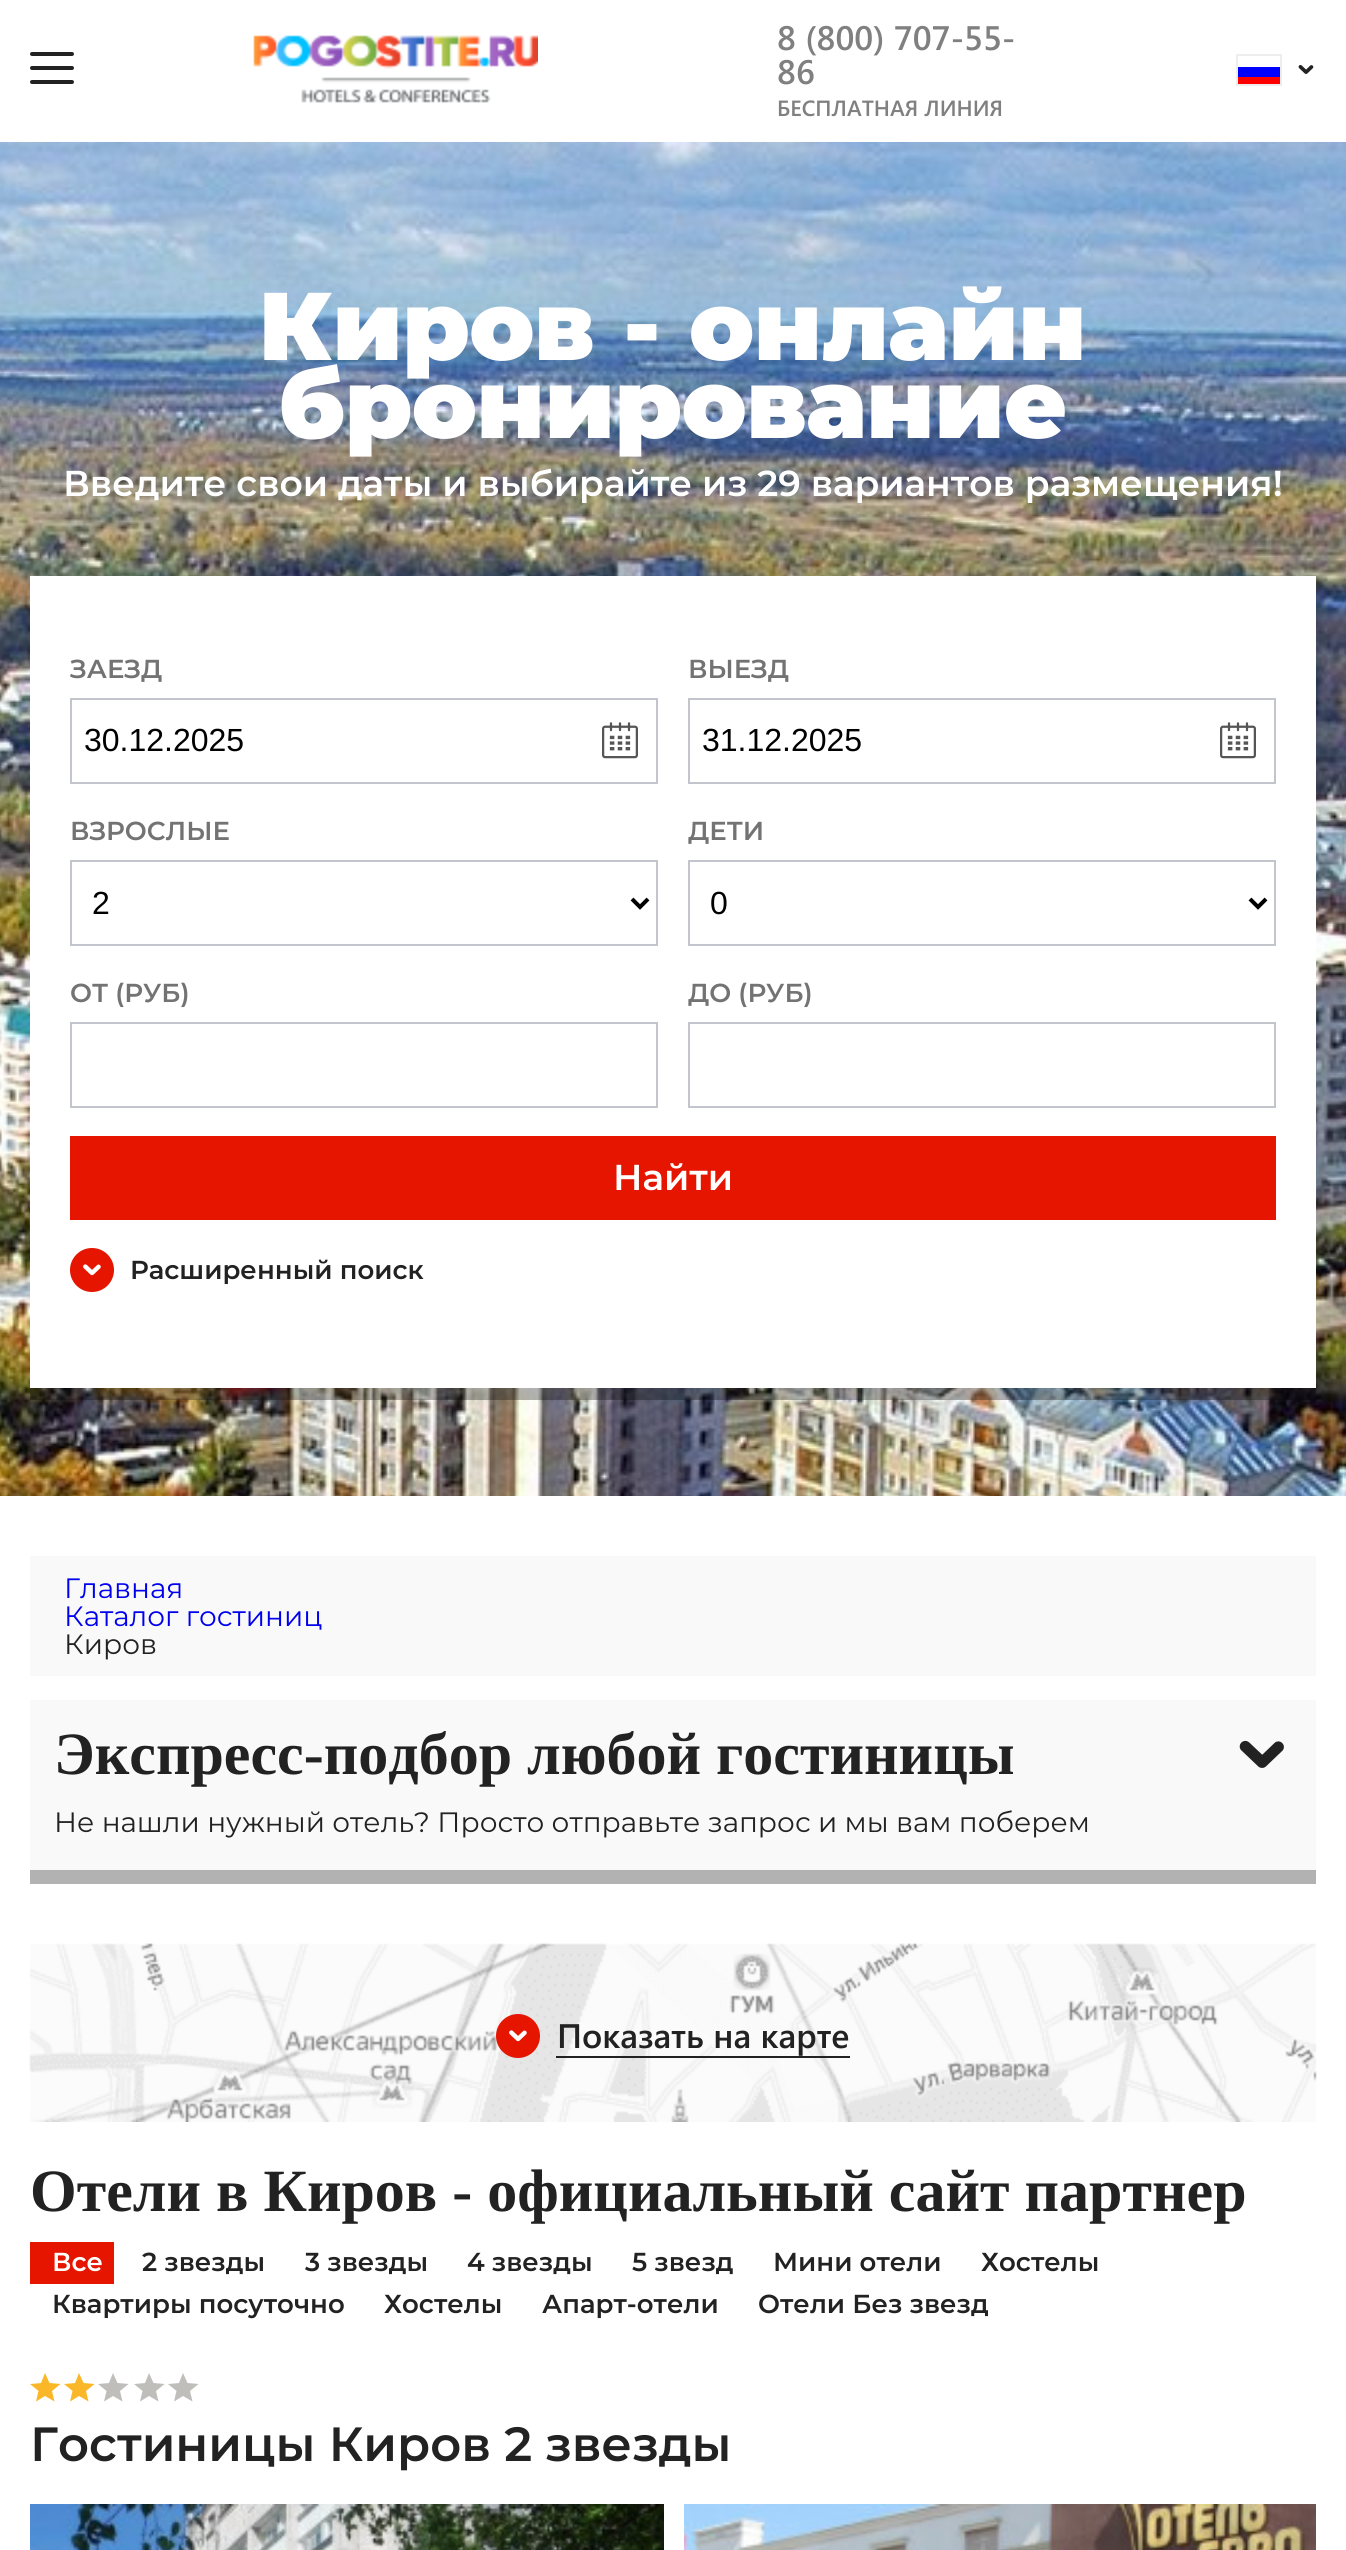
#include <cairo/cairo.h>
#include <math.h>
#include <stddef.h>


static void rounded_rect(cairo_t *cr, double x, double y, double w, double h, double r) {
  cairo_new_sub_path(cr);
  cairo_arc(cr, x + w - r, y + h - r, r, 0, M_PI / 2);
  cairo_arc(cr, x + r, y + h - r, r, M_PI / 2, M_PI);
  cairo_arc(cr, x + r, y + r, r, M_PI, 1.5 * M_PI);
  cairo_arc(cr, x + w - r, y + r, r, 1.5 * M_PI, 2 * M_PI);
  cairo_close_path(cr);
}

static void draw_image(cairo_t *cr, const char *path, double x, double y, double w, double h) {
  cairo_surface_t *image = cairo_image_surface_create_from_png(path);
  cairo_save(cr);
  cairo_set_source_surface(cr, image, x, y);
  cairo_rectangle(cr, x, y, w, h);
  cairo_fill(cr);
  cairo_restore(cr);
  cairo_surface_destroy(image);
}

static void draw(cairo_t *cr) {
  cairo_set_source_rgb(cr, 1, 1, 1);
  cairo_paint(cr);
  cairo_set_source_rgb(cr, 34 / 255.0, 34 / 255.0, 34 / 255.0);
  rounded_rect(cr, 30, 66, 44, 4, 2);
  cairo_fill(cr);
  rounded_rect(cr, 30, 52, 44, 4, 2);
  cairo_fill(cr);
  rounded_rect(cr, 30, 80, 44, 4, 2);
  cairo_fill(cr);
  draw_image(cr, "images/1.png", 253, 35, 285, 68);
  draw_image(cr, "images/2.png", 1238, 67, 42, 17);
  cairo_rectangle(cr, 1237, 55, 44, 30);
  cairo_set_source_rgb(cr, 238 / 255.0, 238 / 255.0, 238 / 255.0);
  cairo_stroke(cr);
  draw_image(cr, "images/3.png", 1298, 65, 16, 9);
  draw_image(cr, "images/4.png", 0, 142, 1346, 1354);
  cairo_set_source_rgba(cr, 0, 0, 0, 0.3);
  cairo_rectangle(cr, 30, 1388, 1286, 12);
  cairo_fill(cr);
  cairo_set_source_rgb(cr, 1, 1, 1);
  cairo_rectangle(cr, 30, 576, 1286, 812);
  cairo_fill(cr);
  cairo_rectangle(cr, 71, 699, 586, 84);
  cairo_set_source_rgb(cr, 195 / 255.0, 197 / 255.0, 205 / 255.0);
  cairo_stroke(cr);
  draw_image(cr, "images/5.png", 602, 722, 36, 37);
  cairo_rectangle(cr, 689, 699, 586, 84);
  cairo_stroke(cr);
  draw_image(cr, "images/5.png", 1220, 722, 36, 37);
  cairo_rectangle(cr, 71, 861, 586, 84);
  cairo_stroke(cr);
  cairo_new_path(cr);
  cairo_move_to(cr, 632, 899);
  cairo_line_to(cr, 640, 907);
  cairo_line_to(cr, 648, 899);
  cairo_set_source_rgb(cr, 0, 0, 0);
  cairo_set_line_width(cr, 4);
  cairo_stroke(cr);
  cairo_rectangle(cr, 689, 861, 586, 84);
  cairo_set_source_rgb(cr, 195 / 255.0, 197 / 255.0, 205 / 255.0);
  cairo_set_line_width(cr, 2);
  cairo_stroke(cr);
  cairo_new_path(cr);
  cairo_move_to(cr, 1250, 899);
  cairo_line_to(cr, 1258, 907);
  cairo_line_to(cr, 1266, 899);
  cairo_set_source_rgb(cr, 0, 0, 0);
  cairo_set_line_width(cr, 4);
  cairo_stroke(cr);
  cairo_rectangle(cr, 71, 1023, 586, 84);
  cairo_set_source_rgb(cr, 195 / 255.0, 197 / 255.0, 205 / 255.0);
  cairo_set_line_width(cr, 2);
  cairo_stroke(cr);
  cairo_rectangle(cr, 689, 1023, 586, 84);
  cairo_stroke(cr);
  cairo_set_source_rgb(cr, 229 / 255.0, 21 / 255.0, 0);
  cairo_rectangle(cr, 70, 1136, 1206, 84);
  cairo_fill(cr);
  cairo_arc(cr, 92, 1270, 22, 0, 2 * M_PI);
  cairo_fill(cr);
  draw_image(cr, "images/6.png", 83, 1264, 18, 12);
  cairo_set_source_rgb(cr, 249 / 255.0, 249 / 255.0, 249 / 255.0);
  cairo_rectangle(cr, 30, 1556, 1286, 120);
  cairo_fill(cr);
  cairo_rectangle(cr, 30, 1700, 1286, 170);
  cairo_fill(cr);
  cairo_set_source_rgb(cr, 178 / 255.0, 178 / 255.0, 178 / 255.0);
  cairo_rectangle(cr, 30, 1870, 1286, 14);
  cairo_fill(cr);
  draw_image(cr, "images/7.png", 1239, 1740, 45, 28);
  draw_image(cr, "images/8.png", 29, 1943, 1288, 179);
  cairo_set_source_rgb(cr, 229 / 255.0, 21 / 255.0, 0);
  cairo_arc(cr, 518, 2036, 22, 0, 2 * M_PI);
  cairo_fill(cr);
  draw_image(cr, "images/6.png", 509, 2030, 18, 12);
  cairo_set_source_rgb(cr, 34 / 255.0, 34 / 255.0, 34 / 255.0);
  cairo_rectangle(cr, 556, 2056, 294, 2);
  cairo_fill(cr);
  cairo_set_source_rgb(cr, 229 / 255.0, 21 / 255.0, 0);
  cairo_rectangle(cr, 30, 2242, 84, 42);
  cairo_fill(cr);
  cairo_set_source_rgb(cr, 250 / 255.0, 184 / 255.0, 41 / 255.0);
  cairo_new_path(cr);
  cairo_move_to(cr, 45, 2396);
  cairo_line_to(cr, 54.5, 2401.5);
  cairo_line_to(cr, 52, 2391);
  cairo_line_to(cr, 60.5, 2384);
  cairo_line_to(cr, 49.5, 2383);
  cairo_line_to(cr, 45, 2373);
  cairo_line_to(cr, 41, 2383);
  cairo_line_to(cr, 30, 2384);
  cairo_line_to(cr, 38.5, 2391);
  cairo_line_to(cr, 36, 2401.5);
  cairo_close_path(cr);
  cairo_fill(cr);
  cairo_new_path(cr);
  cairo_move_to(cr, 79, 2396);
  cairo_line_to(cr, 88.5, 2401.5);
  cairo_line_to(cr, 86, 2391);
  cairo_line_to(cr, 94.5, 2384);
  cairo_line_to(cr, 83.5, 2383);
  cairo_line_to(cr, 79, 2373);
  cairo_line_to(cr, 75, 2383);
  cairo_line_to(cr, 64, 2384);
  cairo_line_to(cr, 72.5, 2391);
  cairo_line_to(cr, 70, 2401.5);
  cairo_close_path(cr);
  cairo_fill(cr);
  cairo_set_source_rgb(cr, 191 / 255.0, 190 / 255.0, 187 / 255.0);
  cairo_new_path(cr);
  cairo_move_to(cr, 113, 2396);
  cairo_line_to(cr, 122.5, 2401.5);
  cairo_line_to(cr, 120, 2391);
  cairo_line_to(cr, 128.5, 2384);
  cairo_line_to(cr, 117.5, 2383);
  cairo_line_to(cr, 113, 2373);
  cairo_line_to(cr, 109, 2383);
  cairo_line_to(cr, 98, 2384);
  cairo_line_to(cr, 106.5, 2391);
  cairo_line_to(cr, 104, 2401.5);
  cairo_close_path(cr);
  cairo_fill(cr);
  cairo_new_path(cr);
  cairo_move_to(cr, 149, 2396);
  cairo_line_to(cr, 158.5, 2401.5);
  cairo_line_to(cr, 156, 2391);
  cairo_line_to(cr, 164.5, 2384);
  cairo_line_to(cr, 153.5, 2383);
  cairo_line_to(cr, 149, 2373);
  cairo_line_to(cr, 145, 2383);
  cairo_line_to(cr, 134, 2384);
  cairo_line_to(cr, 142.5, 2391);
  cairo_line_to(cr, 140, 2401.5);
  cairo_close_path(cr);
  cairo_fill(cr);
  cairo_new_path(cr);
  cairo_move_to(cr, 183, 2396);
  cairo_line_to(cr, 192.5, 2401.5);
  cairo_line_to(cr, 190, 2391);
  cairo_line_to(cr, 198.5, 2384);
  cairo_line_to(cr, 187.5, 2383);
  cairo_line_to(cr, 183, 2373);
  cairo_line_to(cr, 179, 2383);
  cairo_line_to(cr, 168, 2384);
  cairo_line_to(cr, 176.5, 2391);
  cairo_line_to(cr, 174, 2401.5);
  cairo_close_path(cr);
  cairo_fill(cr);
  draw_image(cr, "images/9.png", 30, 2504, 634, 46);
  draw_image(cr, "images/10.png", 684, 2504, 632, 46);
  cairo_select_font_face(cr, "Segoe UI SemiBold", CAIRO_FONT_SLANT_NORMAL, CAIRO_FONT_WEIGHT_NORMAL);
  cairo_set_font_size(cr, 34);
  cairo_set_source_rgb(cr, 128 / 255.0, 128 / 255.0, 128 / 255.0);
  cairo_move_to(cr, 777, 50);
  cairo_show_text(cr, "8 (800) 707-55-");
  cairo_move_to(cr, 777, 84);
  cairo_show_text(cr, "86");
  cairo_set_font_size(cr, 22);
  cairo_move_to(cr, 777, 116);
  cairo_show_text(cr, "БЕСПЛАТНАЯ ЛИНИЯ");
  cairo_select_font_face(cr, "Montserrat Black", CAIRO_FONT_SLANT_NORMAL, CAIRO_FONT_WEIGHT_NORMAL);
  cairo_set_font_size(cr, 96);
  cairo_set_source_rgb(cr, 1, 1, 1);
  cairo_move_to(cr, 259, 360);
  cairo_show_text(cr, "Киров - онлайн");
  cairo_move_to(cr, 279, 438);
  cairo_show_text(cr, "бронирование");
  cairo_select_font_face(cr, "Montserrat SemiBold", CAIRO_FONT_SLANT_NORMAL, CAIRO_FONT_WEIGHT_NORMAL);
  cairo_set_font_size(cr, 36);
  cairo_move_to(cr, 63, 496);
  cairo_show_text(cr, "Введите свои даты и выбирайте из 29 вариантов размещения!");
  cairo_set_font_size(cr, 26);
  cairo_set_source_rgb(cr, 115 / 255.0, 115 / 255.0, 115 / 255.0);
  cairo_move_to(cr, 70, 678);
  cairo_show_text(cr, "ЗАЕЗД");
  cairo_select_font_face(cr, "Liberation Sans", CAIRO_FONT_SLANT_NORMAL, CAIRO_FONT_WEIGHT_NORMAL);
  cairo_set_font_size(cr, 32);
  cairo_set_source_rgb(cr, 0, 0, 0);
  cairo_move_to(cr, 84, 751);
  cairo_show_text(cr, "30.12.2025");
  cairo_select_font_face(cr, "Montserrat SemiBold", CAIRO_FONT_SLANT_NORMAL, CAIRO_FONT_WEIGHT_NORMAL);
  cairo_set_font_size(cr, 26);
  cairo_set_source_rgb(cr, 115 / 255.0, 115 / 255.0, 115 / 255.0);
  cairo_move_to(cr, 688, 678);
  cairo_show_text(cr, "ВЫЕЗД");
  cairo_select_font_face(cr, "Liberation Sans", CAIRO_FONT_SLANT_NORMAL, CAIRO_FONT_WEIGHT_NORMAL);
  cairo_set_font_size(cr, 32);
  cairo_set_source_rgb(cr, 0, 0, 0);
  cairo_move_to(cr, 702, 751);
  cairo_show_text(cr, "31.12.2025");
  cairo_select_font_face(cr, "Montserrat SemiBold", CAIRO_FONT_SLANT_NORMAL, CAIRO_FONT_WEIGHT_NORMAL);
  cairo_set_font_size(cr, 26);
  cairo_set_source_rgb(cr, 115 / 255.0, 115 / 255.0, 115 / 255.0);
  cairo_move_to(cr, 70, 840);
  cairo_show_text(cr, "ВЗРОСЛЫЕ");
  cairo_select_font_face(cr, "Liberation Sans", CAIRO_FONT_SLANT_NORMAL, CAIRO_FONT_WEIGHT_NORMAL);
  cairo_set_font_size(cr, 32);
  cairo_set_source_rgb(cr, 0, 0, 0);
  cairo_move_to(cr, 92, 914);
  cairo_show_text(cr, "2");
  cairo_select_font_face(cr, "Montserrat SemiBold", CAIRO_FONT_SLANT_NORMAL, CAIRO_FONT_WEIGHT_NORMAL);
  cairo_set_font_size(cr, 26);
  cairo_set_source_rgb(cr, 115 / 255.0, 115 / 255.0, 115 / 255.0);
  cairo_move_to(cr, 688, 840);
  cairo_show_text(cr, "ДЕТИ");
  cairo_select_font_face(cr, "Liberation Sans", CAIRO_FONT_SLANT_NORMAL, CAIRO_FONT_WEIGHT_NORMAL);
  cairo_set_font_size(cr, 32);
  cairo_set_source_rgb(cr, 0, 0, 0);
  cairo_move_to(cr, 710, 914);
  cairo_show_text(cr, "0");
  cairo_select_font_face(cr, "Montserrat SemiBold", CAIRO_FONT_SLANT_NORMAL, CAIRO_FONT_WEIGHT_NORMAL);
  cairo_set_font_size(cr, 26);
  cairo_set_source_rgb(cr, 115 / 255.0, 115 / 255.0, 115 / 255.0);
  cairo_move_to(cr, 70, 1002);
  cairo_show_text(cr, "ОТ (РУБ)");
  cairo_move_to(cr, 688, 1002);
  cairo_show_text(cr, "ДО (РУБ)");
  cairo_set_font_size(cr, 36);
  cairo_set_source_rgb(cr, 1, 1, 1);
  cairo_move_to(cr, 613, 1190);
  cairo_show_text(cr, "Найти");
  cairo_set_font_size(cr, 26);
  cairo_set_source_rgb(cr, 34 / 255.0, 34 / 255.0, 34 / 255.0);
  cairo_move_to(cr, 130, 1279);
  cairo_show_text(cr, "Расширенный поиск");
  cairo_select_font_face(cr, "Montserrat", CAIRO_FONT_SLANT_NORMAL, CAIRO_FONT_WEIGHT_NORMAL);
  cairo_set_font_size(cr, 28);
  cairo_set_source_rgb(cr, 0, 0, 238 / 255.0);
  cairo_move_to(cr, 64, 1598);
  cairo_show_text(cr, "Главная");
  cairo_move_to(cr, 64, 1626);
  cairo_show_text(cr, "Каталог гостиниц");
  cairo_set_source_rgb(cr, 34 / 255.0, 34 / 255.0, 34 / 255.0);
  cairo_move_to(cr, 64, 1654);
  cairo_show_text(cr, "Киров");
  cairo_select_font_face(cr, "Liberation Serif", CAIRO_FONT_SLANT_NORMAL, CAIRO_FONT_WEIGHT_BOLD);
  cairo_set_font_size(cr, 60);
  cairo_move_to(cr, 54, 1774);
  cairo_show_text(cr, "Экспресс-подбор любой гостиницы");
  cairo_select_font_face(cr, "Montserrat", CAIRO_FONT_SLANT_NORMAL, CAIRO_FONT_WEIGHT_NORMAL);
  cairo_set_font_size(cr, 28);
  cairo_move_to(cr, 54, 1832);
  cairo_show_text(cr, "Не нашли нужный отель? Просто отправьте запрос и мы вам поберем");
  cairo_select_font_face(cr, "Segoe UI SemiBold", CAIRO_FONT_SLANT_NORMAL, CAIRO_FONT_WEIGHT_NORMAL);
  cairo_set_font_size(cr, 34);
  cairo_move_to(cr, 557, 2048);
  cairo_show_text(cr, "Показать на карте");
  cairo_select_font_face(cr, "Liberation Serif", CAIRO_FONT_SLANT_NORMAL, CAIRO_FONT_WEIGHT_BOLD);
  cairo_set_font_size(cr, 60);
  cairo_move_to(cr, 30, 2211);
  cairo_show_text(cr, "Отели в Киров - официальный сайт партнер");
  cairo_select_font_face(cr, "Montserrat SemiBold", CAIRO_FONT_SLANT_NORMAL, CAIRO_FONT_WEIGHT_NORMAL);
  cairo_set_font_size(cr, 26);
  cairo_set_source_rgb(cr, 1, 1, 1);
  cairo_move_to(cr, 52, 2271);
  cairo_show_text(cr, "Все");
  cairo_set_source_rgb(cr, 34 / 255.0, 34 / 255.0, 34 / 255.0);
  cairo_move_to(cr, 142, 2271);
  cairo_show_text(cr, "2 звезды");
  cairo_move_to(cr, 305, 2271);
  cairo_show_text(cr, "3 звезды");
  cairo_move_to(cr, 467, 2271);
  cairo_show_text(cr, "4 звезды");
  cairo_move_to(cr, 632, 2271);
  cairo_show_text(cr, "5 звезд");
  cairo_move_to(cr, 773, 2271);
  cairo_show_text(cr, "Мини отели");
  cairo_move_to(cr, 981, 2271);
  cairo_show_text(cr, "Хостелы");
  cairo_move_to(cr, 52, 2313);
  cairo_show_text(cr, "Квартиры посуточно");
  cairo_move_to(cr, 384, 2313);
  cairo_show_text(cr, "Хостелы");
  cairo_move_to(cr, 542, 2313);
  cairo_show_text(cr, "Апарт-отели");
  cairo_move_to(cr, 758, 2313);
  cairo_show_text(cr, "Отели Без звезд");
  cairo_set_font_size(cr, 48);
  cairo_move_to(cr, 30, 2461);
  cairo_show_text(cr, "Гостиницы Киров 2 звезды");
}

int main(void) {
  cairo_surface_t *surface = cairo_image_surface_create(CAIRO_FORMAT_RGB24, 1346, 2550);
  cairo_t *cr = cairo_create(surface);
  cairo_font_options_t *options = cairo_font_options_create();
  cairo_font_options_set_hint_metrics(options, CAIRO_HINT_METRICS_OFF);
  cairo_font_options_set_hint_style(options, CAIRO_HINT_STYLE_NONE);
  cairo_set_font_options(cr, options);
  cairo_set_miter_limit(cr, 4);
  draw(cr);
  cairo_surface_write_to_png(surface, "out.png");
  cairo_font_options_destroy(options);
  cairo_destroy(cr);
  cairo_surface_destroy(surface);
  return 0;
}
